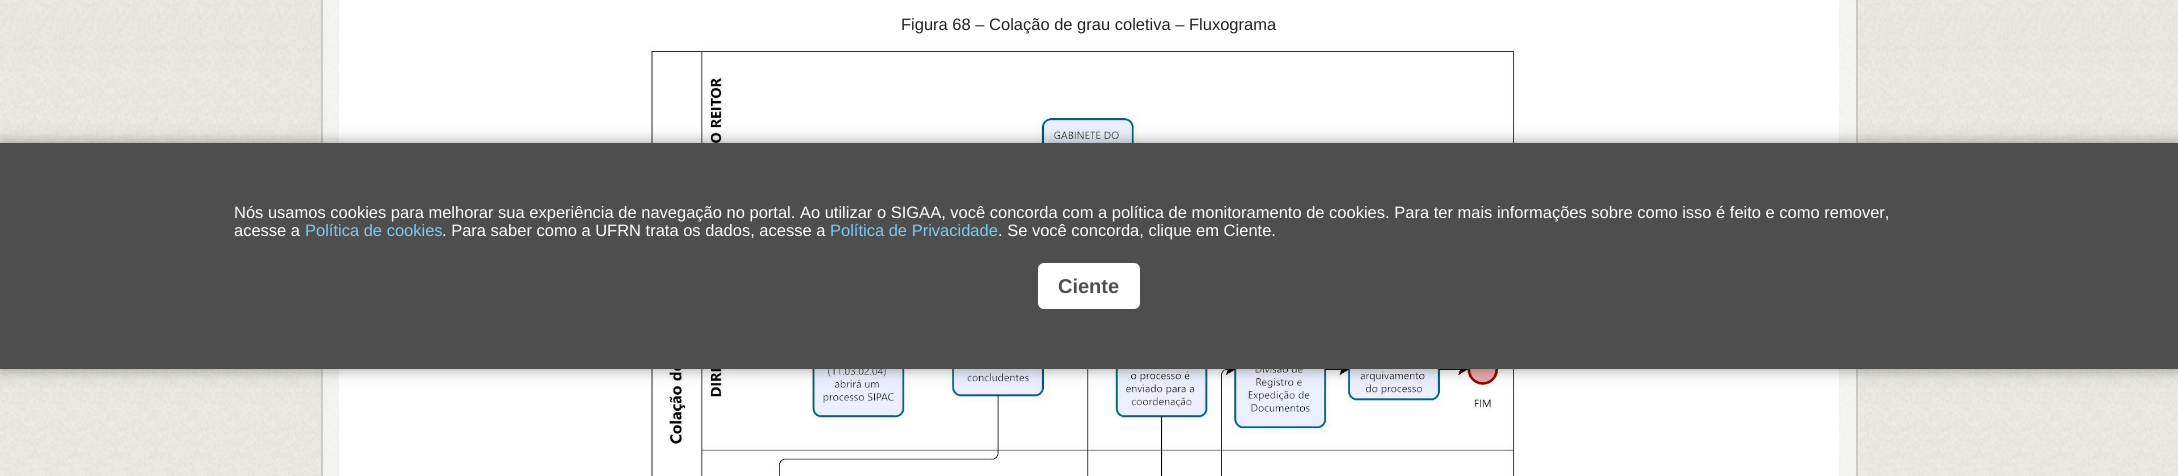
#include <cairo/cairo.h>
#include <math.h>
#include <stddef.h>


static void rounded_rect(cairo_t *cr, double x, double y, double w, double h, double r) {
  cairo_new_sub_path(cr);
  cairo_arc(cr, x + w - r, y + h - r, r, 0, M_PI / 2);
  cairo_arc(cr, x + r, y + h - r, r, M_PI / 2, M_PI);
  cairo_arc(cr, x + r, y + r, r, M_PI, 1.5 * M_PI);
  cairo_arc(cr, x + w - r, y + r, r, 1.5 * M_PI, 2 * M_PI);
  cairo_close_path(cr);
}

static void draw_shadow(cairo_t *cr, double x, double y, double w, double h, double r, double blur, double alpha) {
  cairo_push_group_with_content(cr, CAIRO_CONTENT_ALPHA);
  cairo_set_operator(cr, CAIRO_OPERATOR_SOURCE);
  for (int i = 15; i >= -15 && fmin(w, h) + blur * i / 3 > 0; i -= 2) {
    double e = blur * i / 6;
    cairo_set_source_rgba(cr, 0, 0, 0, alpha * erfc((i - 1) / 8.5) / 2);
    rounded_rect(cr, x - e, y - e, w + 2 * e, h + 2 * e, fmax(0, fmin(r + e + blur * .6, fmin(w, h) / 2 + e)));
    cairo_fill(cr);
  }
  cairo_pattern_t *soft = cairo_pop_group(cr);
  cairo_mask(cr, soft);
  cairo_pattern_destroy(soft);
}

static void draw_image(cairo_t *cr, const char *path, double x, double y, double w, double h) {
  cairo_surface_t *image = cairo_image_surface_create_from_png(path);
  cairo_save(cr);
  cairo_set_source_surface(cr, image, x, y);
  cairo_rectangle(cr, x, y, w, h);
  cairo_fill(cr);
  cairo_restore(cr);
  cairo_surface_destroy(image);
}

static void draw(cairo_t *cr) {
  cairo_set_source_rgb(cr, 1, 1, 1);
  cairo_paint(cr);
  draw_image(cr, "images/1.png", 0, 0, 2178, 476);
  draw_image(cr, "images/2.png", 323, 0, 1533, 476);
  cairo_set_source_rgb(cr, 202 / 255.0, 202 / 255.0, 199 / 255.0);
  cairo_rectangle(cr, 1856, 0, 2, 476);
  cairo_fill(cr);
  cairo_rectangle(cr, 321, 0, 2, 476);
  cairo_fill(cr);
  cairo_set_source_rgb(cr, 1, 1, 1);
  cairo_rectangle(cr, 339, 0, 1500, 476);
  cairo_fill(cr);
  draw_image(cr, "images/3.png", 648, 47, 869, 429);
  cairo_set_source_rgb(cr, 0, 0, 0);
  draw_shadow(cr, 0, 143, 2178, 226, 0, 7.5, 0.4);
  cairo_set_source_rgb(cr, 78 / 255.0, 78 / 255.0, 78 / 255.0);
  cairo_rectangle(cr, 0, 143, 2178, 226);
  cairo_fill(cr);
  cairo_set_source_rgb(cr, 1, 1, 1);
  rounded_rect(cr, 1038, 263, 102, 46, 6);
  cairo_fill(cr);
  cairo_select_font_face(cr, "Liberation Sans", CAIRO_FONT_SLANT_NORMAL, CAIRO_FONT_WEIGHT_NORMAL);
  cairo_set_font_size(cr, 16.5);
  cairo_set_source_rgb(cr, 34 / 255.0, 34 / 255.0, 34 / 255.0);
  cairo_move_to(cr, 901, 30);
  cairo_show_text(cr, "Figura 68 – Colação de grau coletiva – Fluxograma");
  cairo_set_source_rgb(cr, 1, 1, 1);
  cairo_move_to(cr, 234, 218);
  cairo_show_text(cr, "Nós usamos cookies para melhorar sua experiência de navegação no portal. Ao utilizar o SIGAA, você concorda com a política de monitoramento de cookies. Para ter mais informações sobre como isso é feito e como remover,");
  cairo_move_to(cr, 234, 236);
  cairo_show_text(cr, "acesse a");
  cairo_set_source_rgb(cr, 121 / 255.0, 203 / 255.0, 242 / 255.0);
  cairo_move_to(cr, 305, 236);
  cairo_show_text(cr, "Política de cookies");
  cairo_set_source_rgb(cr, 1, 1, 1);
  cairo_move_to(cr, 442, 236);
  cairo_show_text(cr, ". Para saber como a UFRN trata os dados, acesse a");
  cairo_set_source_rgb(cr, 121 / 255.0, 203 / 255.0, 242 / 255.0);
  cairo_move_to(cr, 830, 236);
  cairo_show_text(cr, "Política de Privacidade");
  cairo_set_source_rgb(cr, 1, 1, 1);
  cairo_move_to(cr, 998, 236);
  cairo_show_text(cr, ". Se você concorda, clique em Ciente.");
  cairo_select_font_face(cr, "Liberation Sans", CAIRO_FONT_SLANT_NORMAL, CAIRO_FONT_WEIGHT_BOLD);
  cairo_set_font_size(cr, 20);
  cairo_set_source_rgb(cr, 78 / 255.0, 78 / 255.0, 78 / 255.0);
  cairo_move_to(cr, 1058, 293);
  cairo_show_text(cr, "Ciente");
}

int main(void) {
  cairo_surface_t *surface = cairo_image_surface_create(CAIRO_FORMAT_RGB24, 2178, 476);
  cairo_t *cr = cairo_create(surface);
  cairo_font_options_t *options = cairo_font_options_create();
  cairo_font_options_set_hint_metrics(options, CAIRO_HINT_METRICS_OFF);
  cairo_font_options_set_hint_style(options, CAIRO_HINT_STYLE_NONE);
  cairo_set_font_options(cr, options);
  cairo_set_miter_limit(cr, 4);
  draw(cr);
  cairo_surface_write_to_png(surface, "out.png");
  cairo_font_options_destroy(options);
  cairo_destroy(cr);
  cairo_surface_destroy(surface);
  return 0;
}
